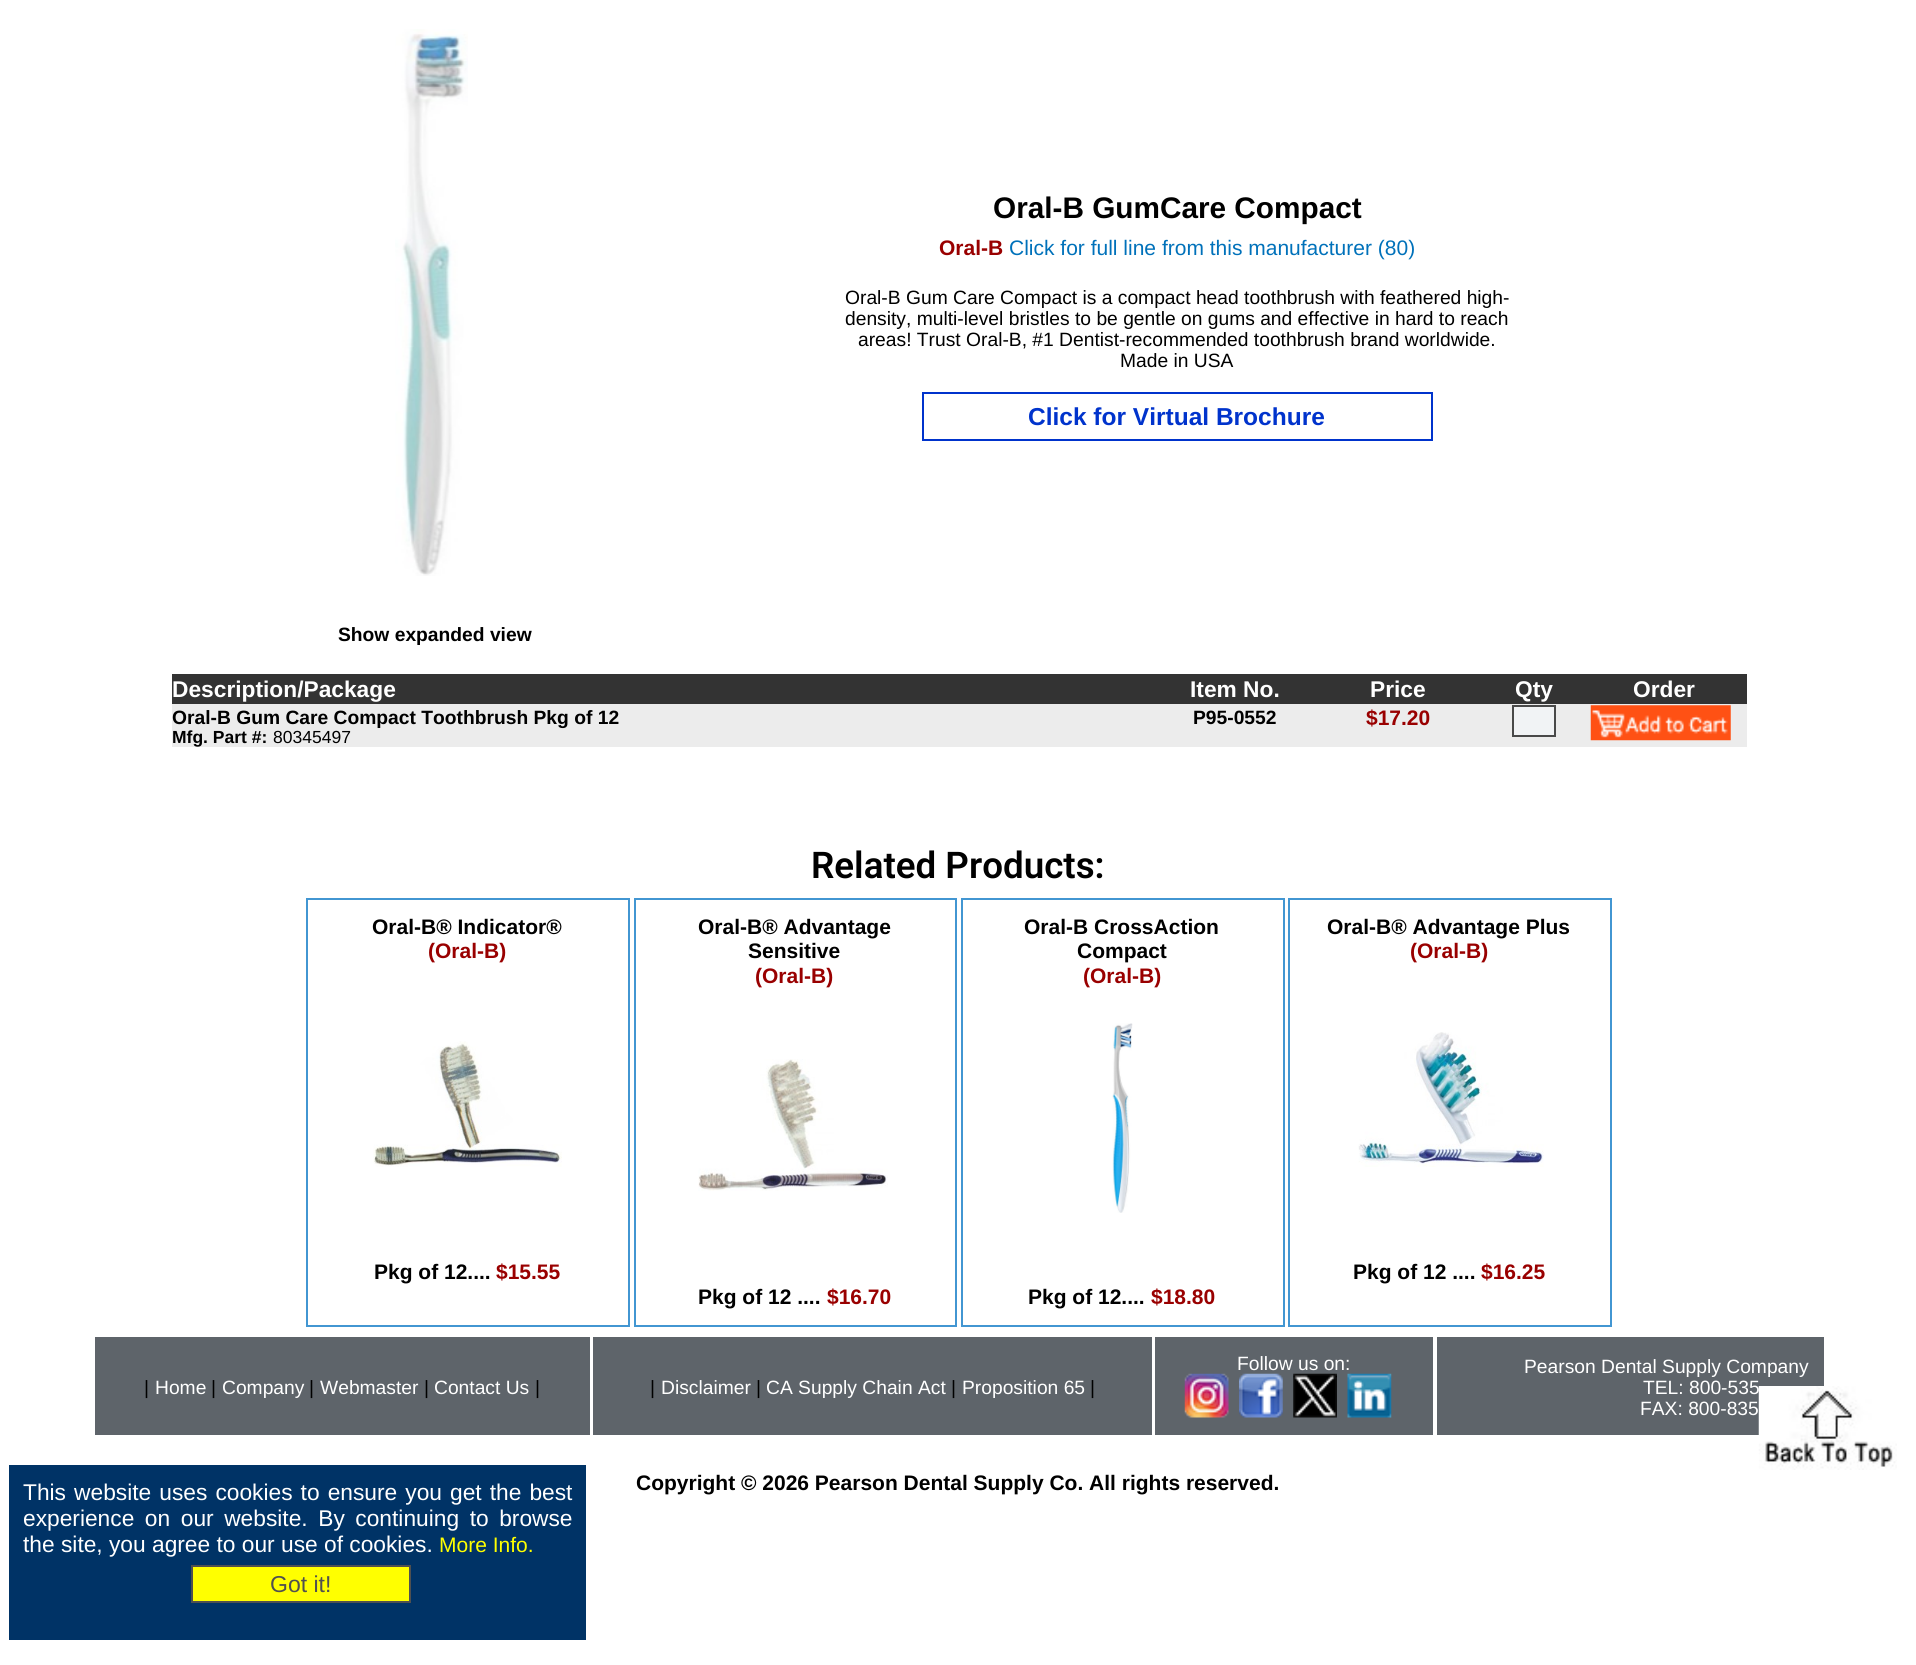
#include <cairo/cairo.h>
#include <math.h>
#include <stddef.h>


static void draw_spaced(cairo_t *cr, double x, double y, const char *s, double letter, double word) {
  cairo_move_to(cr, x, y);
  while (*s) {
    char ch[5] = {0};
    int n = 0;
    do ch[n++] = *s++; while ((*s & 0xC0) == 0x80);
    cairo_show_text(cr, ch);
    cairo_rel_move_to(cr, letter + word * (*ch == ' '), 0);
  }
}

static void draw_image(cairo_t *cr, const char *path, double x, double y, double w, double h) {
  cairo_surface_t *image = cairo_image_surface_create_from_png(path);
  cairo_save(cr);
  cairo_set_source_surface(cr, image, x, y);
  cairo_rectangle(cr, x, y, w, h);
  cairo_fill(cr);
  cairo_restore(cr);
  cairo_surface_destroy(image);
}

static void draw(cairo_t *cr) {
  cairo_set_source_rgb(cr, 1, 1, 1);
  cairo_paint(cr);
  cairo_rectangle(cr, 923, 393, 509, 47);
  cairo_set_source_rgb(cr, 0, 51 / 255.0, 204 / 255.0);
  cairo_stroke(cr);
  draw_image(cr, "images/1.png", 395, 29, 73, 547);
  cairo_set_source_rgb(cr, 51 / 255.0, 51 / 255.0, 51 / 255.0);
  cairo_rectangle(cr, 172, 674, 1575, 30);
  cairo_fill(cr);
  cairo_set_source_rgb(cr, 236 / 255.0, 236 / 255.0, 236 / 255.0);
  cairo_rectangle(cr, 172, 704, 1575, 43);
  cairo_fill(cr);
  cairo_set_source_rgb(cr, 241 / 255.0, 243 / 255.0, 245 / 255.0);
  cairo_rectangle(cr, 1513, 706, 42, 30);
  cairo_fill_preserve(cr);
  cairo_set_source_rgb(cr, 73 / 255.0, 73 / 255.0, 73 / 255.0);
  cairo_stroke(cr);
  draw_image(cr, "images/2.png", 1590, 705, 141, 36);
  cairo_rectangle(cr, 307, 899, 322, 427);
  cairo_set_source_rgb(cr, 66 / 255.0, 150 / 255.0, 210 / 255.0);
  cairo_stroke(cr);
  draw_image(cr, "images/3.png", 373, 1041, 189, 126);
  cairo_rectangle(cr, 635, 899, 321, 427);
  cairo_stroke(cr);
  draw_image(cr, "images/4.png", 698, 1059, 190, 132);
  cairo_rectangle(cr, 962, 899, 322, 427);
  cairo_stroke(cr);
  draw_image(cr, "images/5.png", 1112, 1023, 21, 190);
  cairo_rectangle(cr, 1289, 899, 322, 427);
  cairo_stroke(cr);
  draw_image(cr, "images/6.png", 1358, 1032, 186, 135);
  cairo_set_source_rgb(cr, 94 / 255.0, 100 / 255.0, 106 / 255.0);
  cairo_rectangle(cr, 95, 1337, 495, 98);
  cairo_fill(cr);
  cairo_rectangle(cr, 593, 1337, 559, 98);
  cairo_fill(cr);
  cairo_rectangle(cr, 1155, 1337, 278, 98);
  cairo_fill(cr);
  draw_image(cr, "images/7.png", 1184, 1373, 45, 45);
  draw_image(cr, "images/8.png", 1239, 1373, 44, 45);
  draw_image(cr, "images/9.png", 1293, 1373, 44, 45);
  draw_image(cr, "images/10.png", 1347, 1373, 45, 45);
  cairo_rectangle(cr, 1437, 1337, 387, 98);
  cairo_fill(cr);
  cairo_set_source_rgb(cr, 0, 51 / 255.0, 102 / 255.0);
  cairo_rectangle(cr, 9, 1465, 577, 175);
  cairo_fill(cr);
  cairo_set_source_rgb(cr, 1, 1, 0);
  cairo_rectangle(cr, 192, 1566, 218, 36);
  cairo_fill_preserve(cr);
  cairo_set_source_rgb(cr, 80 / 255.0, 80 / 255.0, 80 / 255.0);
  cairo_stroke(cr);
  cairo_select_font_face(cr, "Liberation Sans", CAIRO_FONT_SLANT_NORMAL, CAIRO_FONT_WEIGHT_BOLD);
  cairo_set_font_size(cr, 29.75);
  cairo_set_source_rgb(cr, 0, 0, 0);
  cairo_move_to(cr, 993, 218);
  cairo_show_text(cr, "Oral-B GumCare Compact");
  cairo_set_font_size(cr, 21);
  cairo_set_source_rgb(cr, 153 / 255.0, 0, 0);
  cairo_move_to(cr, 939, 255);
  cairo_show_text(cr, "Oral-B");
  cairo_select_font_face(cr, "Liberation Sans", CAIRO_FONT_SLANT_NORMAL, CAIRO_FONT_WEIGHT_NORMAL);
  cairo_set_source_rgb(cr, 0, 113 / 255.0, 186 / 255.0);
  cairo_move_to(cr, 1009, 255);
  cairo_show_text(cr, "Click for full line from this manufacturer (80)");
  cairo_set_font_size(cr, 19.25);
  cairo_set_source_rgb(cr, 0, 0, 0);
  cairo_move_to(cr, 845, 304);
  cairo_show_text(cr, "Oral-B Gum Care Compact is a compact head toothbrush with feathered high-");
  cairo_move_to(cr, 845, 325);
  cairo_show_text(cr, "density, multi-level bristles to be gentle on gums and effective in hard to reach");
  cairo_move_to(cr, 858, 346);
  cairo_show_text(cr, "areas! Trust Oral-B, #1 Dentist-recommended toothbrush brand worldwide.");
  cairo_move_to(cr, 1120, 367);
  cairo_show_text(cr, "Made in USA");
  cairo_select_font_face(cr, "Liberation Sans", CAIRO_FONT_SLANT_NORMAL, CAIRO_FONT_WEIGHT_BOLD);
  cairo_set_font_size(cr, 24.5);
  cairo_set_source_rgb(cr, 0, 51 / 255.0, 204 / 255.0);
  cairo_move_to(cr, 1028, 425);
  cairo_show_text(cr, "Click for Virtual Brochure");
  cairo_set_font_size(cr, 19.25);
  cairo_set_source_rgb(cr, 0, 0, 0);
  cairo_move_to(cr, 338, 641);
  cairo_show_text(cr, "Show expanded view");
  cairo_set_font_size(cr, 22.75);
  cairo_set_source_rgb(cr, 1, 1, 1);
  cairo_move_to(cr, 172, 697);
  cairo_show_text(cr, "Description/Package");
  cairo_move_to(cr, 1190, 697);
  cairo_show_text(cr, "Item No.");
  cairo_move_to(cr, 1370, 697);
  cairo_show_text(cr, "Price");
  cairo_move_to(cr, 1515, 697);
  cairo_show_text(cr, "Qty");
  cairo_move_to(cr, 1633, 697);
  cairo_show_text(cr, "Order");
  cairo_set_font_size(cr, 19.25);
  cairo_set_source_rgb(cr, 0, 0, 0);
  cairo_move_to(cr, 172, 724);
  cairo_show_text(cr, "Oral-B Gum Care Compact Toothbrush Pkg of 12");
  cairo_set_font_size(cr, 17.5);
  cairo_move_to(cr, 172, 743);
  cairo_show_text(cr, "Mfg. Part #:");
  cairo_select_font_face(cr, "Liberation Sans", CAIRO_FONT_SLANT_NORMAL, CAIRO_FONT_WEIGHT_NORMAL);
  cairo_move_to(cr, 273, 743);
  cairo_show_text(cr, "80345497");
  cairo_select_font_face(cr, "Liberation Sans", CAIRO_FONT_SLANT_NORMAL, CAIRO_FONT_WEIGHT_BOLD);
  cairo_set_font_size(cr, 19.25);
  cairo_move_to(cr, 1193, 724);
  cairo_show_text(cr, "P95-0552");
  cairo_set_font_size(cr, 21);
  cairo_set_source_rgb(cr, 153 / 255.0, 0, 0);
  cairo_move_to(cr, 1366, 725);
  cairo_show_text(cr, "$17.20");
  cairo_select_font_face(cr, "Roboto SemiBold", CAIRO_FONT_SLANT_NORMAL, CAIRO_FONT_WEIGHT_NORMAL);
  cairo_set_font_size(cr, 36.75);
  cairo_set_source_rgb(cr, 0, 0, 0);
  cairo_move_to(cr, 811, 878);
  cairo_show_text(cr, "Related Products:");
  cairo_select_font_face(cr, "Liberation Sans", CAIRO_FONT_SLANT_NORMAL, CAIRO_FONT_WEIGHT_BOLD);
  cairo_set_font_size(cr, 21);
  cairo_move_to(cr, 372, 934);
  cairo_show_text(cr, "Oral-B® Indicator®");
  cairo_set_source_rgb(cr, 153 / 255.0, 0, 0);
  cairo_move_to(cr, 428, 958);
  cairo_show_text(cr, "(Oral-B)");
  cairo_set_source_rgb(cr, 0, 0, 0);
  cairo_move_to(cr, 374, 1279);
  cairo_show_text(cr, "Pkg of 12....");
  cairo_set_source_rgb(cr, 153 / 255.0, 0, 0);
  cairo_move_to(cr, 496, 1279);
  cairo_show_text(cr, "$15.55");
  cairo_set_source_rgb(cr, 0, 0, 0);
  cairo_move_to(cr, 698, 934);
  cairo_show_text(cr, "Oral-B® Advantage");
  cairo_move_to(cr, 748, 958);
  cairo_show_text(cr, "Sensitive");
  cairo_set_source_rgb(cr, 153 / 255.0, 0, 0);
  cairo_move_to(cr, 755, 983);
  cairo_show_text(cr, "(Oral-B)");
  cairo_set_source_rgb(cr, 0, 0, 0);
  cairo_move_to(cr, 698, 1304);
  cairo_show_text(cr, "Pkg of 12 ....");
  cairo_set_source_rgb(cr, 153 / 255.0, 0, 0);
  cairo_move_to(cr, 827, 1304);
  cairo_show_text(cr, "$16.70");
  cairo_set_source_rgb(cr, 0, 0, 0);
  cairo_move_to(cr, 1024, 934);
  cairo_show_text(cr, "Oral-B CrossAction");
  cairo_move_to(cr, 1077, 958);
  cairo_show_text(cr, "Compact");
  cairo_set_source_rgb(cr, 153 / 255.0, 0, 0);
  cairo_move_to(cr, 1083, 983);
  cairo_show_text(cr, "(Oral-B)");
  cairo_set_source_rgb(cr, 0, 0, 0);
  cairo_move_to(cr, 1028, 1304);
  cairo_show_text(cr, "Pkg of 12....");
  cairo_set_source_rgb(cr, 153 / 255.0, 0, 0);
  cairo_move_to(cr, 1151, 1304);
  cairo_show_text(cr, "$18.80");
  cairo_set_source_rgb(cr, 0, 0, 0);
  cairo_move_to(cr, 1327, 934);
  cairo_show_text(cr, "Oral-B® Advantage Plus");
  cairo_set_source_rgb(cr, 153 / 255.0, 0, 0);
  cairo_move_to(cr, 1410, 958);
  cairo_show_text(cr, "(Oral-B)");
  cairo_set_source_rgb(cr, 0, 0, 0);
  cairo_move_to(cr, 1353, 1279);
  cairo_show_text(cr, "Pkg of 12 ....");
  cairo_set_source_rgb(cr, 153 / 255.0, 0, 0);
  cairo_move_to(cr, 1481, 1279);
  cairo_show_text(cr, "$16.25");
  cairo_select_font_face(cr, "Liberation Sans", CAIRO_FONT_SLANT_NORMAL, CAIRO_FONT_WEIGHT_NORMAL);
  cairo_set_font_size(cr, 19.25);
  cairo_set_source_rgb(cr, 0, 0, 0);
  cairo_move_to(cr, 144, 1394);
  cairo_show_text(cr, "|");
  cairo_set_source_rgb(cr, 1, 1, 1);
  cairo_move_to(cr, 155, 1394);
  cairo_show_text(cr, "Home");
  cairo_set_source_rgb(cr, 0, 0, 0);
  cairo_move_to(cr, 211, 1394);
  cairo_show_text(cr, "|");
  cairo_set_source_rgb(cr, 1, 1, 1);
  cairo_move_to(cr, 222, 1394);
  cairo_show_text(cr, "Company");
  cairo_set_source_rgb(cr, 0, 0, 0);
  cairo_move_to(cr, 309, 1394);
  cairo_show_text(cr, "|");
  cairo_set_source_rgb(cr, 1, 1, 1);
  cairo_move_to(cr, 320, 1394);
  cairo_show_text(cr, "Webmaster");
  cairo_set_source_rgb(cr, 0, 0, 0);
  cairo_move_to(cr, 424, 1394);
  cairo_show_text(cr, "|");
  cairo_set_source_rgb(cr, 1, 1, 1);
  cairo_move_to(cr, 434, 1394);
  cairo_show_text(cr, "Contact Us");
  cairo_set_source_rgb(cr, 0, 0, 0);
  cairo_move_to(cr, 535, 1394);
  cairo_show_text(cr, "|");
  cairo_move_to(cr, 650, 1394);
  cairo_show_text(cr, "|");
  cairo_set_source_rgb(cr, 1, 1, 1);
  cairo_move_to(cr, 661, 1394);
  cairo_show_text(cr, "Disclaimer");
  cairo_set_source_rgb(cr, 0, 0, 0);
  cairo_move_to(cr, 756, 1394);
  cairo_show_text(cr, "|");
  cairo_set_source_rgb(cr, 1, 1, 1);
  cairo_move_to(cr, 766, 1394);
  cairo_show_text(cr, "CA Supply Chain Act");
  cairo_set_source_rgb(cr, 0, 0, 0);
  cairo_move_to(cr, 951, 1394);
  cairo_show_text(cr, "|");
  cairo_set_source_rgb(cr, 1, 1, 1);
  cairo_move_to(cr, 962, 1394);
  cairo_show_text(cr, "Proposition 65");
  cairo_set_source_rgb(cr, 0, 0, 0);
  cairo_move_to(cr, 1090, 1394);
  cairo_show_text(cr, "|");
  cairo_set_source_rgb(cr, 1, 1, 1);
  cairo_move_to(cr, 1237, 1370);
  cairo_show_text(cr, "Follow us on:");
  cairo_move_to(cr, 1524, 1373);
  cairo_show_text(cr, "Pearson Dental Supply Company");
  cairo_move_to(cr, 1643, 1394);
  cairo_show_text(cr, "TEL: 800-535");
  cairo_move_to(cr, 1640, 1415);
  cairo_show_text(cr, "FAX: 800-835");
  draw_image(cr, "images/11.png", 1758, 1386, 139, 84);
  cairo_set_font_size(cr, 22.75);
  draw_spaced(cr, 23, 1500, "This website uses cookies to ensure you get the best", 0, 1.75);
  draw_spaced(cr, 23, 1526, "experience on our website. By continuing to browse", 0, 4.25);
  cairo_move_to(cr, 23, 1552);
  cairo_show_text(cr, "the site, you agree to our use of cookies.");
  cairo_set_font_size(cr, 21);
  cairo_set_source_rgb(cr, 1, 1, 0);
  cairo_move_to(cr, 439, 1552);
  cairo_show_text(cr, "More Info.");
  cairo_set_font_size(cr, 23);
  cairo_set_source_rgb(cr, 80 / 255.0, 80 / 255.0, 80 / 255.0);
  cairo_move_to(cr, 270, 1592);
  cairo_show_text(cr, "Got it!");
  cairo_select_font_face(cr, "Liberation Sans", CAIRO_FONT_SLANT_NORMAL, CAIRO_FONT_WEIGHT_BOLD);
  cairo_set_font_size(cr, 21);
  cairo_set_source_rgb(cr, 0, 0, 0);
  cairo_move_to(cr, 636, 1490);
  cairo_show_text(cr, "Copyright © 2026 Pearson Dental Supply Co. All rights reserved.");
}

int main(void) {
  cairo_surface_t *surface = cairo_image_surface_create(CAIRO_FORMAT_RGB24, 1916, 1665);
  cairo_t *cr = cairo_create(surface);
  cairo_font_options_t *options = cairo_font_options_create();
  cairo_font_options_set_hint_metrics(options, CAIRO_HINT_METRICS_OFF);
  cairo_font_options_set_hint_style(options, CAIRO_HINT_STYLE_NONE);
  cairo_set_font_options(cr, options);
  cairo_set_miter_limit(cr, 4);
  draw(cr);
  cairo_surface_write_to_png(surface, "out.png");
  cairo_font_options_destroy(options);
  cairo_destroy(cr);
  cairo_surface_destroy(surface);
  return 0;
}
